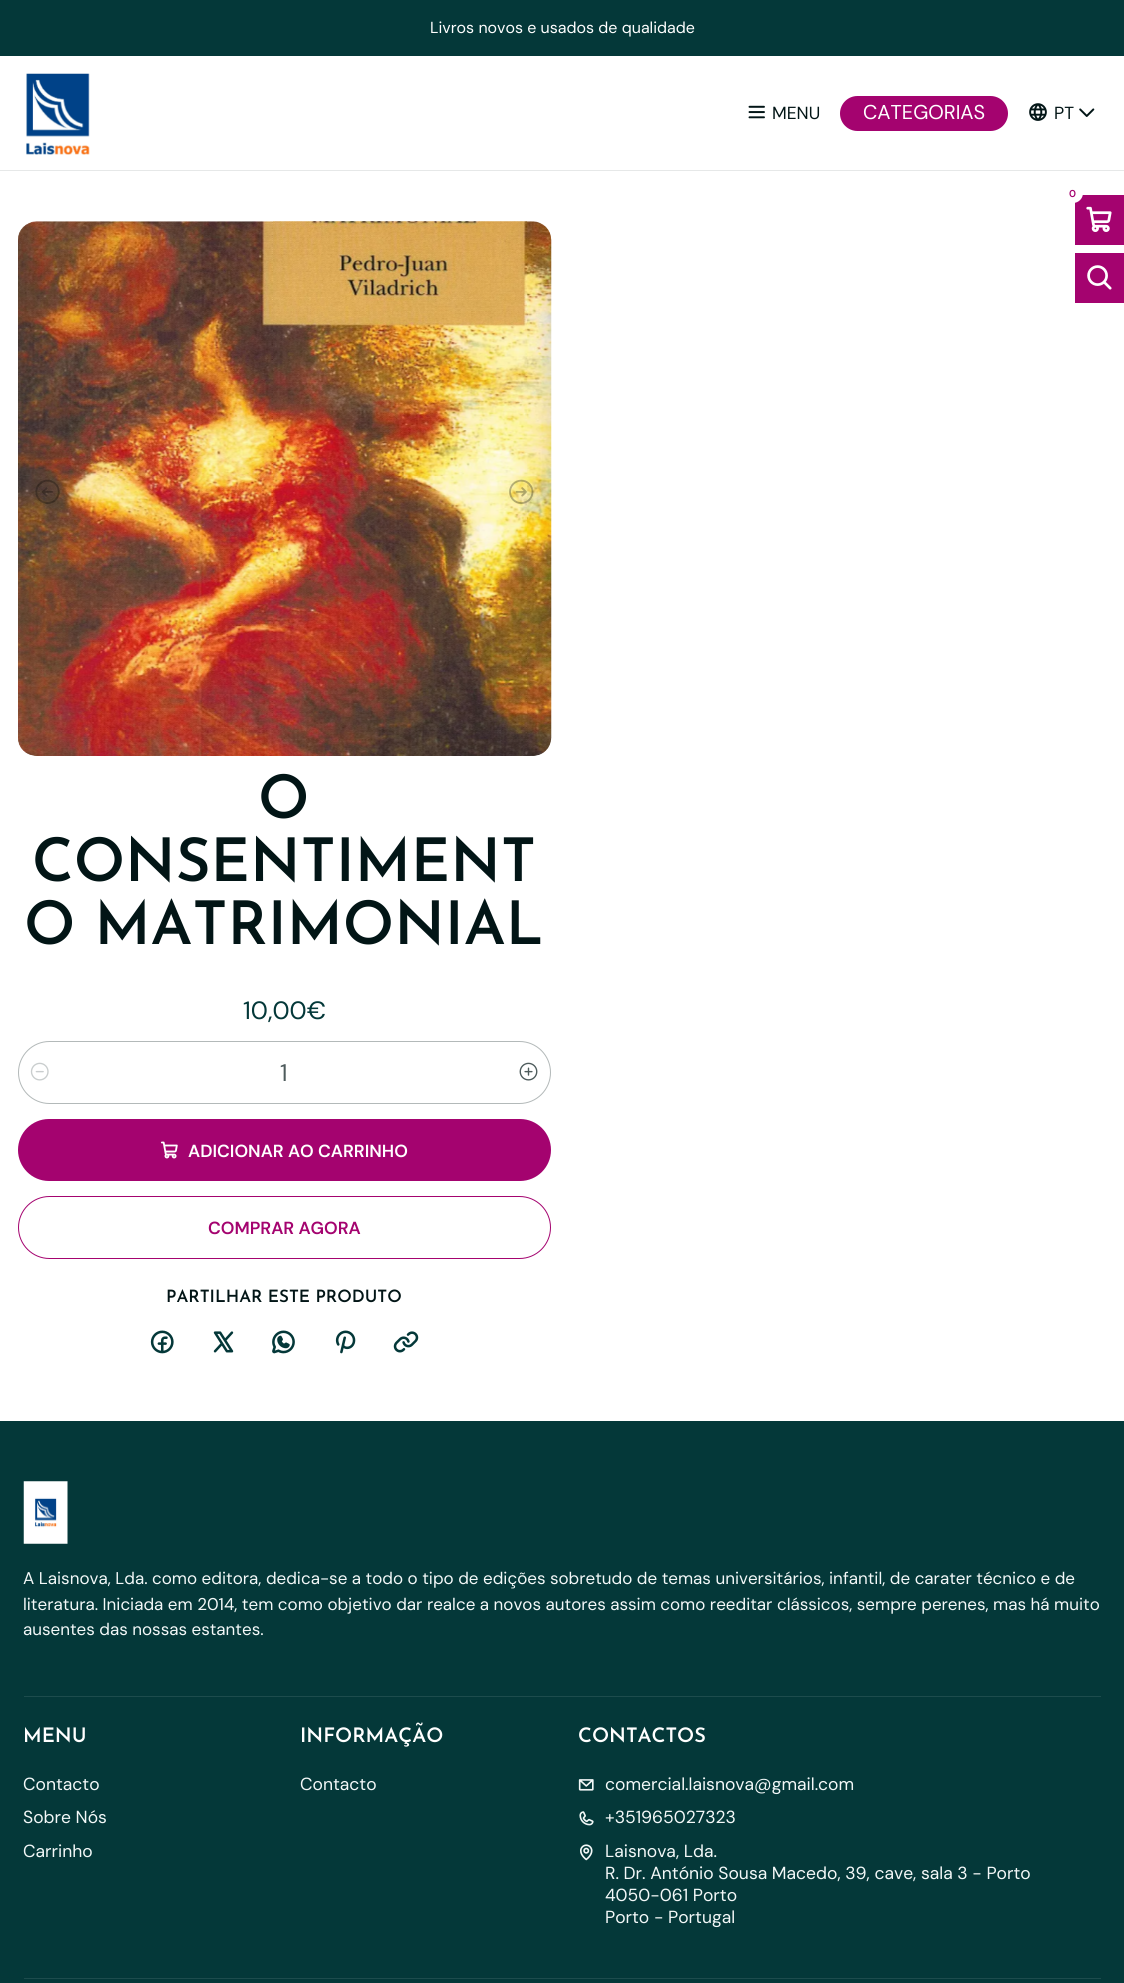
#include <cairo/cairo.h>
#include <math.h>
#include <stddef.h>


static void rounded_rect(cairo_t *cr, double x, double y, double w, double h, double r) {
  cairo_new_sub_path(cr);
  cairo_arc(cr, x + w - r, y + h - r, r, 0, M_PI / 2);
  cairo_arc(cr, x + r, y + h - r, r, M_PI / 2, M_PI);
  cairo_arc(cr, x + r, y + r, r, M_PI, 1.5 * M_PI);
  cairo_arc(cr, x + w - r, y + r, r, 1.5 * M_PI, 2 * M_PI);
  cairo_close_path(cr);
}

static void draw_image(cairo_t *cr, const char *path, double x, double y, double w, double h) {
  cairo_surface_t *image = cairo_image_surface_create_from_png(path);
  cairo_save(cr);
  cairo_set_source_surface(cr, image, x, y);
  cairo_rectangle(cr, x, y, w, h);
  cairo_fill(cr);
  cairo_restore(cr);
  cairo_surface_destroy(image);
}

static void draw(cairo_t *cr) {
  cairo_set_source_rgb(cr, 1, 1, 1);
  cairo_paint(cr);
  cairo_set_source_rgb(cr, 4 / 255.0, 56 / 255.0, 57 / 255.0);
  cairo_rectangle(cr, 0, 0, 1124, 56);
  cairo_fill(cr);
  cairo_set_source_rgb(cr, 230 / 255.0, 232 / 255.0, 232 / 255.0);
  cairo_rectangle(cr, 0, 170, 1124, 1);
  cairo_fill(cr);
  draw_image(cr, "images/1.png", 26, 73, 64, 82);
  draw_image(cr, "images/2.png", 748, 105, 17, 14);
  cairo_set_source_rgb(cr, 164 / 255.0, 3 / 255.0, 111 / 255.0);
  rounded_rect(cr, 840, 96, 168, 35, 17.5);
  cairo_fill(cr);
  draw_image(cr, "images/3.png", 1029, 103, 18, 18);
  draw_image(cr, "images/4.png", 1079, 108, 16, 9);
  cairo_rectangle(cr, 1075, 195, 49, 50);
  cairo_fill(cr);
  cairo_set_source_rgb(cr, 1, 1, 1);
  cairo_arc(cr, 1073, 193, 10, 0, 2 * M_PI);
  cairo_fill(cr);
  draw_image(cr, "images/5.png", 1086, 206, 26, 26);
  cairo_set_source_rgb(cr, 164 / 255.0, 3 / 255.0, 111 / 255.0);
  cairo_rectangle(cr, 1075, 253, 49, 50);
  cairo_fill(cr);
  draw_image(cr, "images/6.png", 1087, 265, 25, 25);
  draw_image(cr, "images/7.png", 18, 221, 534, 535);
  draw_image(cr, "images/8.png", 35, 479, 25, 25);
  draw_image(cr, "images/9.png", 509, 479, 25, 25);
  rounded_rect(cr, 18.5, 1041.5, 532, 62, 31);
  cairo_set_source_rgb(cr, 179 / 255.0, 185 / 255.0, 185 / 255.0);
  cairo_set_line_width(cr, 1);
  cairo_stroke(cr);
  draw_image(cr, "images/10.png", 30, 1062, 19, 19);
  draw_image(cr, "images/11.png", 519, 1062, 19, 19);
  cairo_set_source_rgb(cr, 164 / 255.0, 3 / 255.0, 111 / 255.0);
  rounded_rect(cr, 18, 1119, 533, 62, 31);
  cairo_fill(cr);
  draw_image(cr, "images/12.png", 160, 1141, 18, 18);
  rounded_rect(cr, 18.5, 1196.5, 532, 62, 31);
  cairo_stroke(cr);
  draw_image(cr, "images/13.png", 150, 1330, 24, 24);
  draw_image(cr, "images/14.png", 213, 1331, 21, 22);
  draw_image(cr, "images/15.png", 272, 1330, 23, 24);
  draw_image(cr, "images/16.png", 335, 1330, 21, 24);
  draw_image(cr, "images/17.png", 393, 1331, 26, 22);
  cairo_set_source_rgb(cr, 4 / 255.0, 56 / 255.0, 57 / 255.0);
  cairo_rectangle(cr, 0, 1421, 1124, 562);
  cairo_fill(cr);
  draw_image(cr, "images/18.png", 23, 1481, 45, 63);
  cairo_set_source_rgb(cr, 29 / 255.0, 76 / 255.0, 77 / 255.0);
  cairo_rectangle(cr, 24, 1696, 1077, 1);
  cairo_fill(cr);
  draw_image(cr, "images/19.png", 578, 1779, 16, 12);
  draw_image(cr, "images/20.png", 579, 1811, 15, 15);
  draw_image(cr, "images/21.png", 580, 1844, 13, 17);
  cairo_rectangle(cr, 24, 1978, 1077, 1);
  cairo_fill(cr);
  cairo_select_font_face(cr, "DM Sans", CAIRO_FONT_SLANT_NORMAL, CAIRO_FONT_WEIGHT_NORMAL);
  cairo_set_font_size(cr, 16);
  cairo_set_source_rgb(cr, 1, 1, 1);
  cairo_move_to(cr, 430, 33);
  cairo_show_text(cr, "Livros novos e usados de qualidade");
  cairo_set_font_size(cr, 17.5);
  cairo_set_source_rgb(cr, 2 / 255.0, 21 / 255.0, 22 / 255.0);
  cairo_move_to(cr, 772, 119);
  cairo_show_text(cr, "MENU");
  cairo_set_font_size(cr, 20);
  cairo_set_source_rgb(cr, 1, 1, 1);
  cairo_move_to(cr, 863, 119);
  cairo_show_text(cr, "CATEGORIAS");
  cairo_set_font_size(cr, 17.5);
  cairo_set_source_rgb(cr, 2 / 255.0, 21 / 255.0, 22 / 255.0);
  cairo_move_to(cr, 1054, 119);
  cairo_show_text(cr, "PT");
  cairo_select_font_face(cr, "DM Sans SemiBold", CAIRO_FONT_SLANT_NORMAL, CAIRO_FONT_WEIGHT_NORMAL);
  cairo_set_font_size(cr, 10);
  cairo_set_source_rgb(cr, 164 / 255.0, 3 / 255.0, 111 / 255.0);
  cairo_move_to(cr, 1069, 197);
  cairo_show_text(cr, "0");
  cairo_select_font_face(cr, "Josefin Sans SemiBold", CAIRO_FONT_SLANT_NORMAL, CAIRO_FONT_WEIGHT_NORMAL);
  cairo_set_font_size(cr, 60);
  cairo_set_source_rgb(cr, 2 / 255.0, 21 / 255.0, 22 / 255.0);
  cairo_move_to(cr, 258, 818);
  cairo_show_text(cr, "O");
  cairo_move_to(cr, 32, 881);
  cairo_show_text(cr, "CONSENTIMENT");
  cairo_move_to(cr, 24, 944);
  cairo_show_text(cr, "O MATRIMONIAL");
  cairo_select_font_face(cr, "DM Sans", CAIRO_FONT_SLANT_NORMAL, CAIRO_FONT_WEIGHT_NORMAL);
  cairo_set_font_size(cr, 25);
  cairo_set_source_rgb(cr, 4 / 255.0, 56 / 255.0, 57 / 255.0);
  cairo_move_to(cr, 243, 1019);
  cairo_show_text(cr, "10,00€");
  cairo_set_font_size(cr, 24);
  cairo_set_source_rgb(cr, 78 / 255.0, 91 / 255.0, 92 / 255.0);
  cairo_move_to(cr, 280, 1081);
  cairo_show_text(cr, "1");
  cairo_select_font_face(cr, "DM Sans SemiBold", CAIRO_FONT_SLANT_NORMAL, CAIRO_FONT_WEIGHT_NORMAL);
  cairo_set_font_size(cr, 17.5);
  cairo_set_source_rgb(cr, 1, 1, 1);
  cairo_move_to(cr, 188, 1157);
  cairo_show_text(cr, "ADICIONAR AO CARRINHO");
  cairo_set_source_rgb(cr, 164 / 255.0, 3 / 255.0, 111 / 255.0);
  cairo_move_to(cr, 208, 1234);
  cairo_show_text(cr, "COMPRAR AGORA");
  cairo_select_font_face(cr, "Josefin Sans SemiBold", CAIRO_FONT_SLANT_NORMAL, CAIRO_FONT_WEIGHT_NORMAL);
  cairo_set_font_size(cr, 17);
  cairo_set_source_rgb(cr, 2 / 255.0, 21 / 255.0, 22 / 255.0);
  cairo_move_to(cr, 166, 1302);
  cairo_show_text(cr, "PARTILHAR ESTE PRODUTO");
  cairo_select_font_face(cr, "DM Sans", CAIRO_FONT_SLANT_NORMAL, CAIRO_FONT_WEIGHT_NORMAL);
  cairo_set_source_rgb(cr, 243 / 255.0, 248 / 255.0, 248 / 255.0);
  cairo_move_to(cr, 23, 1584);
  cairo_show_text(cr, "A Laisnova, Lda. como editora, dedica-se a todo o tipo de edições sobretudo de temas universitários, infantil, de carater técnico e de");
  cairo_move_to(cr, 23, 1610);
  cairo_show_text(cr, "literatura. Iniciada em 2014, tem como objetivo dar realce a novos autores assim como reeditar clássicos, sempre perenes, mas há muito");
  cairo_move_to(cr, 23, 1635);
  cairo_show_text(cr, "ausentes das nossas estantes.");
  cairo_select_font_face(cr, "Josefin Sans SemiBold", CAIRO_FONT_SLANT_NORMAL, CAIRO_FONT_WEIGHT_NORMAL);
  cairo_set_font_size(cr, 20);
  cairo_set_source_rgb(cr, 1, 1, 1);
  cairo_move_to(cr, 23, 1742);
  cairo_show_text(cr, "MENU");
  cairo_select_font_face(cr, "DM Sans", CAIRO_FONT_SLANT_NORMAL, CAIRO_FONT_WEIGHT_NORMAL);
  cairo_set_font_size(cr, 17.5);
  cairo_set_source_rgb(cr, 243 / 255.0, 248 / 255.0, 248 / 255.0);
  cairo_move_to(cr, 23, 1790);
  cairo_show_text(cr, "Contacto");
  cairo_move_to(cr, 23, 1823);
  cairo_show_text(cr, "Sobre Nós");
  cairo_move_to(cr, 23, 1857);
  cairo_show_text(cr, "Carrinho");
  cairo_select_font_face(cr, "Josefin Sans SemiBold", CAIRO_FONT_SLANT_NORMAL, CAIRO_FONT_WEIGHT_NORMAL);
  cairo_set_font_size(cr, 20);
  cairo_set_source_rgb(cr, 1, 1, 1);
  cairo_move_to(cr, 300, 1742);
  cairo_show_text(cr, "INFORMAÇÃO");
  cairo_select_font_face(cr, "DM Sans", CAIRO_FONT_SLANT_NORMAL, CAIRO_FONT_WEIGHT_NORMAL);
  cairo_set_font_size(cr, 17.5);
  cairo_set_source_rgb(cr, 243 / 255.0, 248 / 255.0, 248 / 255.0);
  cairo_move_to(cr, 300, 1790);
  cairo_show_text(cr, "Contacto");
  cairo_select_font_face(cr, "Josefin Sans SemiBold", CAIRO_FONT_SLANT_NORMAL, CAIRO_FONT_WEIGHT_NORMAL);
  cairo_set_font_size(cr, 20);
  cairo_set_source_rgb(cr, 1, 1, 1);
  cairo_move_to(cr, 578, 1742);
  cairo_show_text(cr, "CONTACTOS");
  cairo_select_font_face(cr, "DM Sans", CAIRO_FONT_SLANT_NORMAL, CAIRO_FONT_WEIGHT_NORMAL);
  cairo_set_font_size(cr, 17.5);
  cairo_set_source_rgb(cr, 243 / 255.0, 248 / 255.0, 248 / 255.0);
  cairo_move_to(cr, 605, 1790);
  cairo_show_text(cr, "comercial.laisnova@gmail.com");
  cairo_move_to(cr, 605, 1823);
  cairo_show_text(cr, "+351965027323");
  cairo_move_to(cr, 605, 1857);
  cairo_show_text(cr, "Laisnova, Lda.");
  cairo_move_to(cr, 605, 1879);
  cairo_show_text(cr, "R. Dr. António Sousa Macedo, 39, cave, sala 3 - Porto");
  cairo_move_to(cr, 605, 1901);
  cairo_show_text(cr, "4050-061 Porto");
  cairo_move_to(cr, 605, 1923);
  cairo_show_text(cr, "Porto - Portugal");
}

int main(void) {
  cairo_surface_t *surface = cairo_image_surface_create(CAIRO_FORMAT_RGB24, 1124, 1983);
  cairo_t *cr = cairo_create(surface);
  cairo_font_options_t *options = cairo_font_options_create();
  cairo_font_options_set_hint_metrics(options, CAIRO_HINT_METRICS_OFF);
  cairo_font_options_set_hint_style(options, CAIRO_HINT_STYLE_NONE);
  cairo_set_font_options(cr, options);
  cairo_set_miter_limit(cr, 4);
  draw(cr);
  cairo_surface_write_to_png(surface, "out.png");
  cairo_font_options_destroy(options);
  cairo_destroy(cr);
  cairo_surface_destroy(surface);
  return 0;
}
